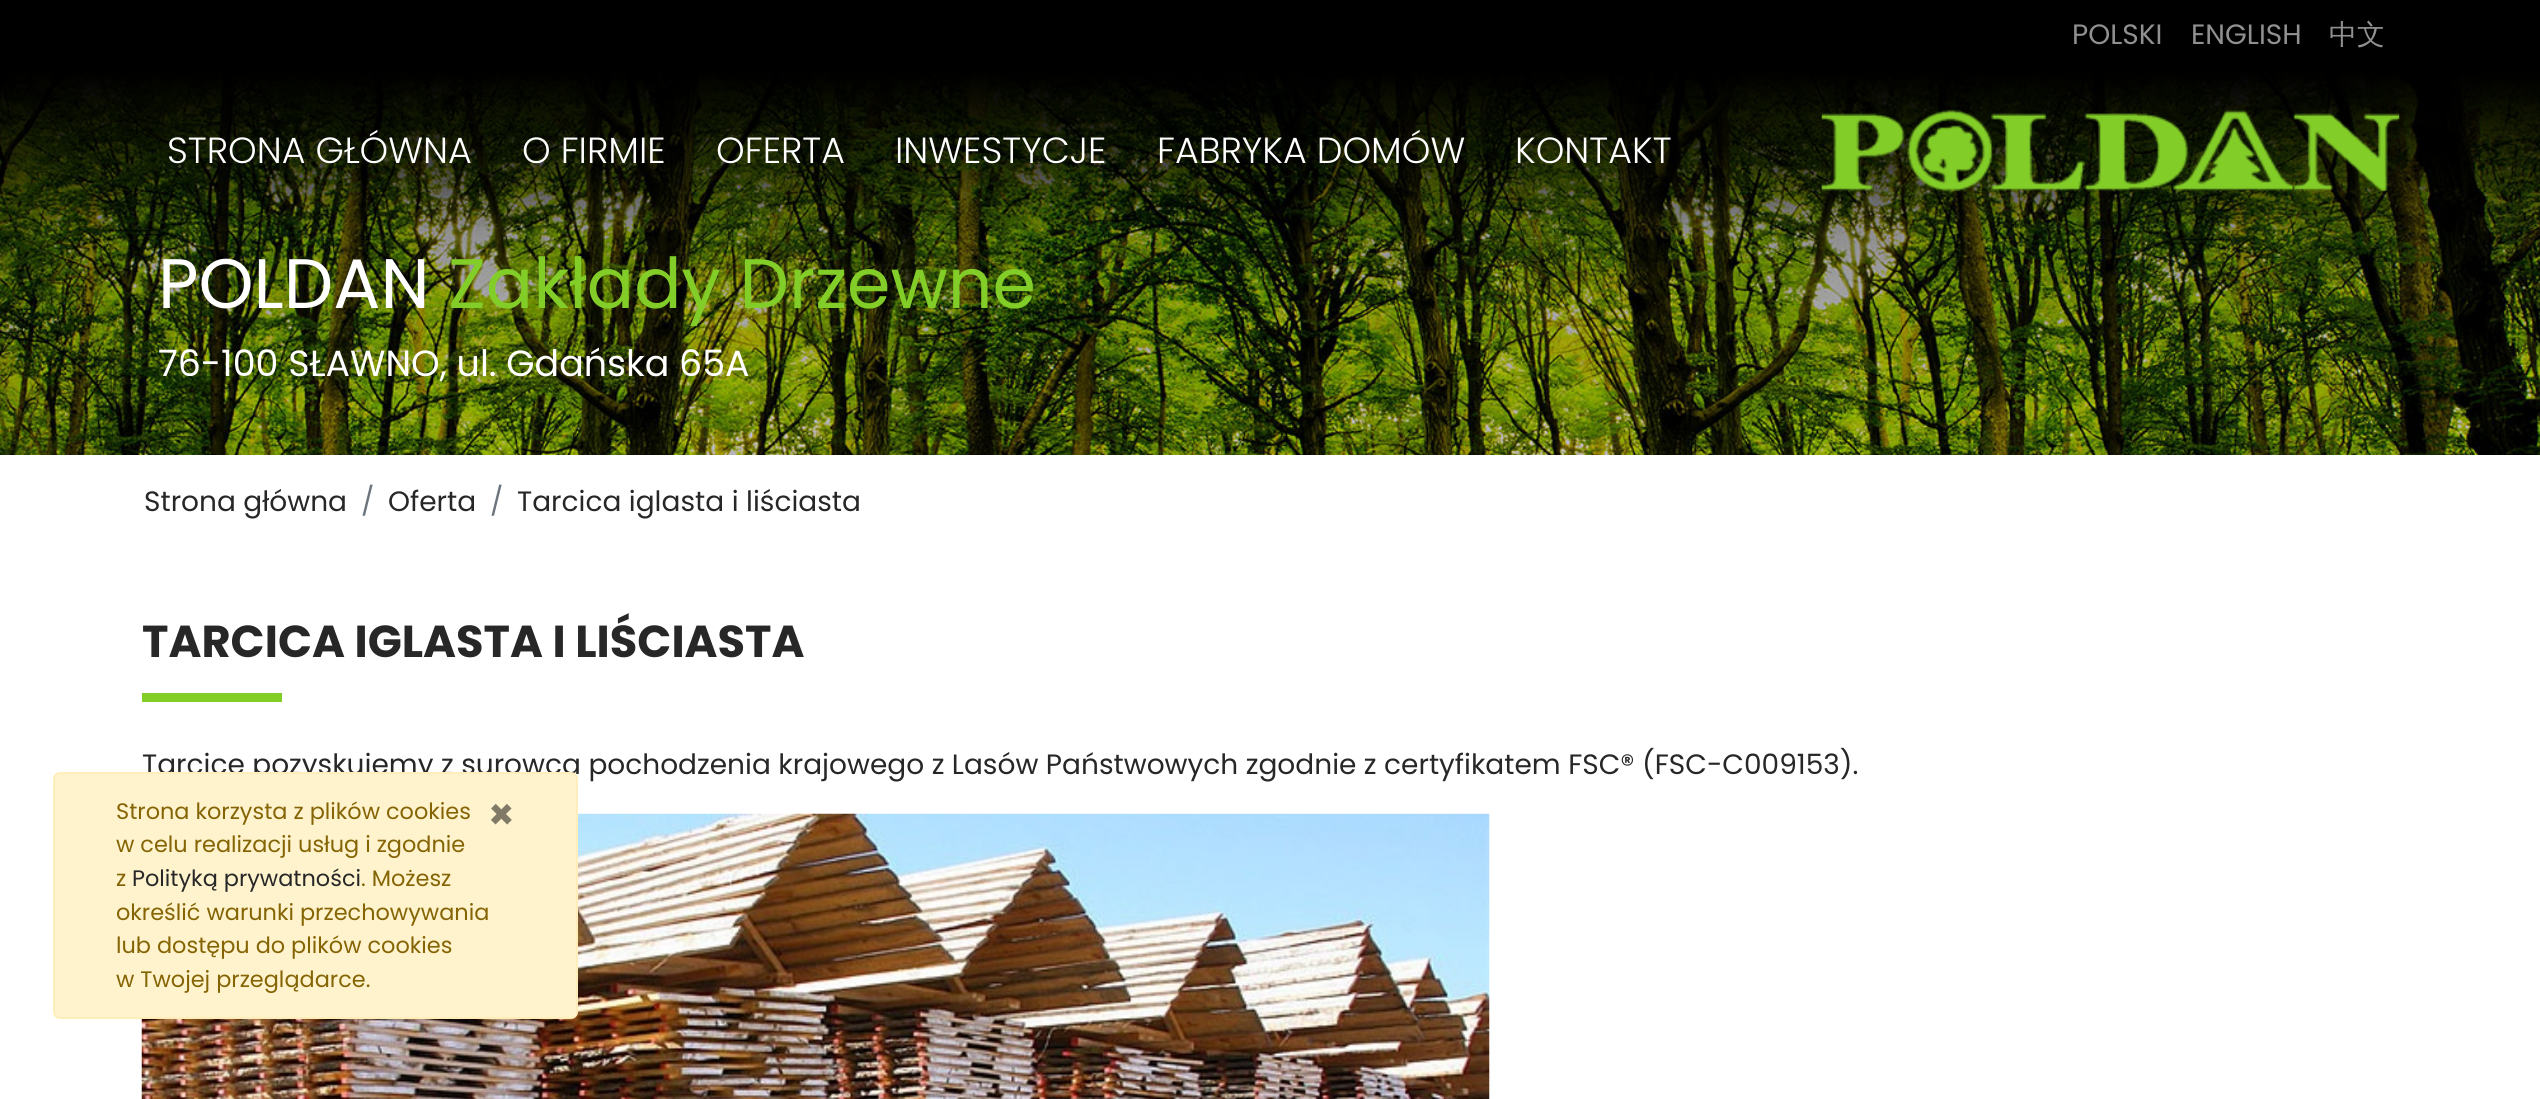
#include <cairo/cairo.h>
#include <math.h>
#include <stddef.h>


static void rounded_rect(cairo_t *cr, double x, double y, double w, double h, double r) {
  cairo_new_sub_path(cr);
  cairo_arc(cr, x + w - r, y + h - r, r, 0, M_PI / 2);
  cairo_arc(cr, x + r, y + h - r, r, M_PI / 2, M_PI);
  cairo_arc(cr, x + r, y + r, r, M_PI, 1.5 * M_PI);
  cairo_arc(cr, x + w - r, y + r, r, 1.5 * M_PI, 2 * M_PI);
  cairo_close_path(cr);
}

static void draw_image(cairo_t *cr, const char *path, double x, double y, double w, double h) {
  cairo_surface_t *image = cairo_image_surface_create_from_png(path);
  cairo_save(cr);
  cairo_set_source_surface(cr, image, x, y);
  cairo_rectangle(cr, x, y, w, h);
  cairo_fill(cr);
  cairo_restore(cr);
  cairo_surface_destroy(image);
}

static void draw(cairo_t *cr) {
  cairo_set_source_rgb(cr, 1, 1, 1);
  cairo_paint(cr);
  cairo_set_source_rgb(cr, 0, 0, 0);
  cairo_rectangle(cr, 0, 0, 2540, 70);
  cairo_fill(cr);
  draw_image(cr, "images/2.png", 0, 70, 2540, 385);
  draw_image(cr, "images/1.png", 1821, 109, 579, 83);
  cairo_set_source_rgb(cr, 131 / 255.0, 205 / 255.0, 41 / 255.0);
  cairo_rectangle(cr, 142, 693, 140, 9);
  cairo_fill(cr);
  draw_image(cr, "images/3.png", 141, 813, 1349, 286);
  cairo_select_font_face(cr, "Poppins", CAIRO_FONT_SLANT_NORMAL, CAIRO_FONT_WEIGHT_NORMAL);
  cairo_set_font_size(cr, 28);
  cairo_set_source_rgb(cr, 144 / 255.0, 144 / 255.0, 144 / 255.0);
  cairo_move_to(cr, 2072, 44);
  cairo_show_text(cr, "POLSKI");
  cairo_move_to(cr, 2191, 44);
  cairo_show_text(cr, "ENGLISH");
  cairo_select_font_face(cr, "WenQuanYi Zen Hei Medium", CAIRO_FONT_SLANT_NORMAL, CAIRO_FONT_WEIGHT_NORMAL);
  cairo_move_to(cr, 2329, 44);
  cairo_show_text(cr, "中文");
  cairo_select_font_face(cr, "Poppins Light", CAIRO_FONT_SLANT_NORMAL, CAIRO_FONT_WEIGHT_NORMAL);
  cairo_set_font_size(cr, 36.4);
  cairo_set_source_rgb(cr, 1, 1, 1);
  cairo_move_to(cr, 167, 163);
  cairo_show_text(cr, "STRONA GŁÓWNA");
  cairo_move_to(cr, 522, 163);
  cairo_show_text(cr, "O FIRMIE");
  cairo_move_to(cr, 716, 163);
  cairo_show_text(cr, "OFERTA");
  cairo_move_to(cr, 895, 163);
  cairo_show_text(cr, "INWESTYCJE");
  cairo_move_to(cr, 1157, 163);
  cairo_show_text(cr, "FABRYKA DOMÓW");
  cairo_move_to(cr, 1515, 163);
  cairo_show_text(cr, "KONTAKT");
  cairo_select_font_face(cr, "Poppins", CAIRO_FONT_SLANT_NORMAL, CAIRO_FONT_WEIGHT_NORMAL);
  cairo_set_font_size(cr, 70);
  cairo_move_to(cr, 158, 308);
  cairo_show_text(cr, "POLDAN");
  cairo_set_source_rgb(cr, 131 / 255.0, 205 / 255.0, 41 / 255.0);
  cairo_move_to(cr, 448, 308);
  cairo_show_text(cr, "Zakłady Drzewne");
  cairo_set_font_size(cr, 36.4);
  cairo_set_source_rgb(cr, 1, 1, 1);
  cairo_move_to(cr, 158, 376);
  cairo_show_text(cr, "76-100 SŁAWNO, ul. Gdańska 65A");
  cairo_set_font_size(cr, 28);
  cairo_set_source_rgb(cr, 39 / 255.0, 39 / 255.0, 39 / 255.0);
  cairo_move_to(cr, 144, 511);
  cairo_show_text(cr, "Strona główna");
  cairo_set_source_rgb(cr, 108 / 255.0, 117 / 255.0, 125 / 255.0);
  cairo_move_to(cr, 361, 511);
  cairo_show_text(cr, "/");
  cairo_set_source_rgb(cr, 39 / 255.0, 39 / 255.0, 39 / 255.0);
  cairo_move_to(cr, 388, 511);
  cairo_show_text(cr, "Oferta");
  cairo_set_source_rgb(cr, 108 / 255.0, 117 / 255.0, 125 / 255.0);
  cairo_move_to(cr, 490, 511);
  cairo_show_text(cr, "/");
  cairo_set_source_rgb(cr, 39 / 255.0, 39 / 255.0, 39 / 255.0);
  cairo_move_to(cr, 517, 511);
  cairo_show_text(cr, "Tarcica iglasta i liściasta");
  cairo_select_font_face(cr, "Poppins", CAIRO_FONT_SLANT_NORMAL, CAIRO_FONT_WEIGHT_BOLD);
  cairo_set_font_size(cr, 44.75);
  cairo_move_to(cr, 142, 657);
  cairo_show_text(cr, "TARCICA IGLASTA I LIŚCIASTA");
  cairo_select_font_face(cr, "Poppins", CAIRO_FONT_SLANT_NORMAL, CAIRO_FONT_WEIGHT_NORMAL);
  cairo_set_font_size(cr, 28);
  cairo_move_to(cr, 142, 774);
  cairo_show_text(cr, "Tarcicę pozyskujemy z surowca pochodzenia krajowego z Lasów Państwowych zgodnie z certyfikatem FSC® (FSC-C009153).");
  cairo_set_source_rgb(cr, 1, 243 / 255.0, 205 / 255.0);
  rounded_rect(cr, 54, 773, 523, 245, 6);
  cairo_fill_preserve(cr);
  cairo_set_source_rgb(cr, 1, 238 / 255.0, 186 / 255.0);
  cairo_stroke(cr);
  cairo_set_font_size(cr, 22.4);
  cairo_set_source_rgb(cr, 133 / 255.0, 100 / 255.0, 4 / 255.0);
  cairo_move_to(cr, 116, 819);
  cairo_show_text(cr, "Strona korzysta z plików cookies");
  cairo_select_font_face(cr, "Poppins", CAIRO_FONT_SLANT_NORMAL, CAIRO_FONT_WEIGHT_BOLD);
  cairo_set_font_size(cr, 42);
  cairo_set_source_rgb(cr, 128 / 255.0, 122 / 255.0, 103 / 255.0);
  cairo_move_to(cr, 488, 829);
  cairo_show_text(cr, "×");
  cairo_select_font_face(cr, "Poppins", CAIRO_FONT_SLANT_NORMAL, CAIRO_FONT_WEIGHT_NORMAL);
  cairo_set_font_size(cr, 22.4);
  cairo_set_source_rgb(cr, 133 / 255.0, 100 / 255.0, 4 / 255.0);
  cairo_move_to(cr, 116, 852);
  cairo_show_text(cr, "w celu realizacji usług i zgodnie");
  cairo_move_to(cr, 116, 886);
  cairo_show_text(cr, "z");
  cairo_set_source_rgb(cr, 39 / 255.0, 39 / 255.0, 39 / 255.0);
  cairo_move_to(cr, 132, 886);
  cairo_show_text(cr, "Polityką prywatności");
  cairo_set_source_rgb(cr, 133 / 255.0, 100 / 255.0, 4 / 255.0);
  cairo_move_to(cr, 361, 886);
  cairo_show_text(cr, ". Możesz");
  cairo_move_to(cr, 116, 920);
  cairo_show_text(cr, "określić warunki przechowywania");
  cairo_move_to(cr, 116, 953);
  cairo_show_text(cr, "lub dostępu do plików cookies");
  cairo_move_to(cr, 116, 987);
  cairo_show_text(cr, "w Twojej przeglądarce.");
}

int main(void) {
  cairo_surface_t *surface = cairo_image_surface_create(CAIRO_FORMAT_RGB24, 2540, 1099);
  cairo_t *cr = cairo_create(surface);
  cairo_font_options_t *options = cairo_font_options_create();
  cairo_font_options_set_hint_metrics(options, CAIRO_HINT_METRICS_OFF);
  cairo_font_options_set_hint_style(options, CAIRO_HINT_STYLE_NONE);
  cairo_set_font_options(cr, options);
  cairo_set_miter_limit(cr, 4);
  draw(cr);
  cairo_surface_write_to_png(surface, "out.png");
  cairo_font_options_destroy(options);
  cairo_destroy(cr);
  cairo_surface_destroy(surface);
  return 0;
}
